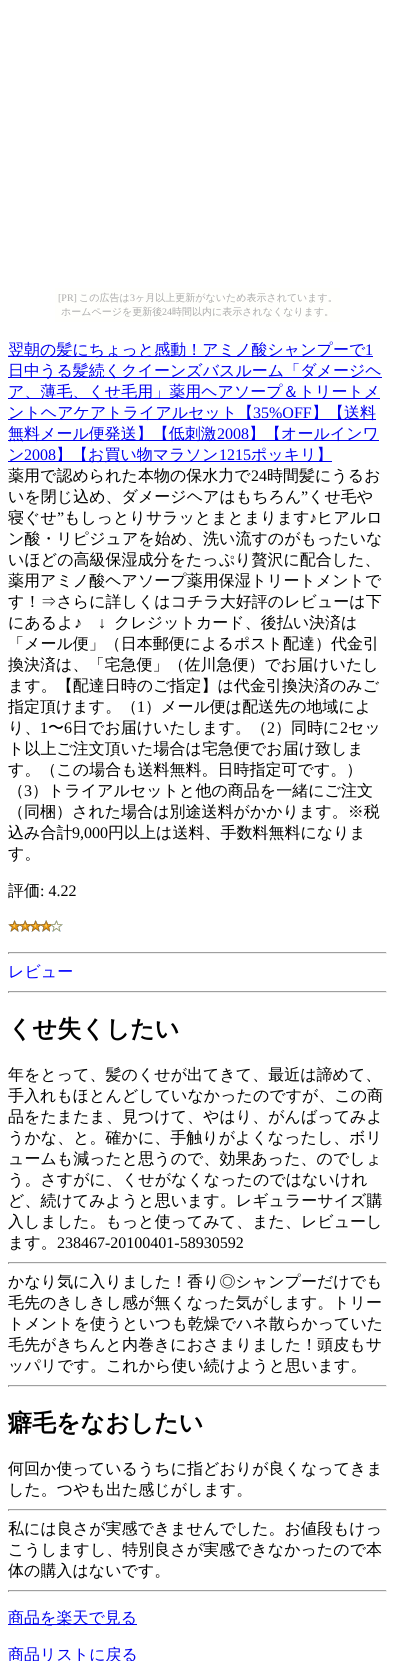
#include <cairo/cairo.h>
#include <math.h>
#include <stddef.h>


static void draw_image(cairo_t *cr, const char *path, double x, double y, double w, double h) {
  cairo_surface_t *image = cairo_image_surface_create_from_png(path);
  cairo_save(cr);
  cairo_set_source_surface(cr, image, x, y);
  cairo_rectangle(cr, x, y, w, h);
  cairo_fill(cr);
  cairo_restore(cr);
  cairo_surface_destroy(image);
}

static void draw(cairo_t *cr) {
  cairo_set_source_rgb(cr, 1, 1, 1);
  cairo_paint(cr);
  cairo_set_source_rgb(cr, 1, 1, 252 / 255.0);
  cairo_rectangle(cr, 55, 288, 285, 34);
  cairo_fill(cr);
  cairo_set_source_rgb(cr, 0, 0, 238 / 255.0);
  cairo_rectangle(cr, 8, 356, 365, 1);
  cairo_fill(cr);
  cairo_rectangle(cr, 8, 377, 374, 1);
  cairo_fill(cr);
  cairo_rectangle(cr, 8, 398, 372, 1);
  cairo_fill(cr);
  cairo_rectangle(cr, 8, 419, 368, 1);
  cairo_fill(cr);
  cairo_rectangle(cr, 8, 440, 371, 1);
  cairo_fill(cr);
  cairo_rectangle(cr, 8, 461, 324, 1);
  cairo_fill(cr);
  draw_image(cr, "images/1.png", 8, 920, 55, 12);
  cairo_set_source_rgb(cr, 159 / 255.0, 159 / 255.0, 159 / 255.0);
  cairo_rectangle(cr, 8, 952, 379, 1);
  cairo_fill(cr);
  cairo_set_source_rgb(cr, 238 / 255.0, 238 / 255.0, 238 / 255.0);
  cairo_rectangle(cr, 386, 952, 1, 2);
  cairo_fill(cr);
  cairo_rectangle(cr, 8, 953, 379, 1);
  cairo_fill(cr);
  cairo_set_source_rgb(cr, 159 / 255.0, 159 / 255.0, 159 / 255.0);
  cairo_rectangle(cr, 8, 952, 1, 2);
  cairo_fill(cr);
  cairo_rectangle(cr, 8, 991, 379, 1);
  cairo_fill(cr);
  cairo_set_source_rgb(cr, 238 / 255.0, 238 / 255.0, 238 / 255.0);
  cairo_rectangle(cr, 386, 991, 1, 2);
  cairo_fill(cr);
  cairo_rectangle(cr, 8, 992, 379, 1);
  cairo_fill(cr);
  cairo_set_source_rgb(cr, 159 / 255.0, 159 / 255.0, 159 / 255.0);
  cairo_rectangle(cr, 8, 991, 1, 2);
  cairo_fill(cr);
  cairo_rectangle(cr, 8, 1262, 379, 1);
  cairo_fill(cr);
  cairo_set_source_rgb(cr, 238 / 255.0, 238 / 255.0, 238 / 255.0);
  cairo_rectangle(cr, 386, 1262, 1, 2);
  cairo_fill(cr);
  cairo_rectangle(cr, 8, 1263, 379, 1);
  cairo_fill(cr);
  cairo_set_source_rgb(cr, 159 / 255.0, 159 / 255.0, 159 / 255.0);
  cairo_rectangle(cr, 8, 1262, 1, 2);
  cairo_fill(cr);
  cairo_rectangle(cr, 8, 1385, 379, 1);
  cairo_fill(cr);
  cairo_set_source_rgb(cr, 238 / 255.0, 238 / 255.0, 238 / 255.0);
  cairo_rectangle(cr, 386, 1385, 1, 2);
  cairo_fill(cr);
  cairo_rectangle(cr, 8, 1386, 379, 1);
  cairo_fill(cr);
  cairo_set_source_rgb(cr, 159 / 255.0, 159 / 255.0, 159 / 255.0);
  cairo_rectangle(cr, 8, 1385, 1, 2);
  cairo_fill(cr);
  cairo_rectangle(cr, 8, 1509, 379, 1);
  cairo_fill(cr);
  cairo_set_source_rgb(cr, 238 / 255.0, 238 / 255.0, 238 / 255.0);
  cairo_rectangle(cr, 386, 1509, 1, 2);
  cairo_fill(cr);
  cairo_rectangle(cr, 8, 1510, 379, 1);
  cairo_fill(cr);
  cairo_set_source_rgb(cr, 159 / 255.0, 159 / 255.0, 159 / 255.0);
  cairo_rectangle(cr, 8, 1509, 1, 2);
  cairo_fill(cr);
  cairo_rectangle(cr, 8, 1590, 379, 1);
  cairo_fill(cr);
  cairo_set_source_rgb(cr, 238 / 255.0, 238 / 255.0, 238 / 255.0);
  cairo_rectangle(cr, 386, 1590, 1, 2);
  cairo_fill(cr);
  cairo_rectangle(cr, 8, 1591, 379, 1);
  cairo_fill(cr);
  cairo_set_source_rgb(cr, 159 / 255.0, 159 / 255.0, 159 / 255.0);
  cairo_rectangle(cr, 8, 1590, 1, 2);
  cairo_fill(cr);
  cairo_set_source_rgb(cr, 0, 0, 238 / 255.0);
  cairo_rectangle(cr, 8, 1624, 129, 1);
  cairo_fill(cr);
  cairo_select_font_face(cr, "Liberation Serif", CAIRO_FONT_SLANT_NORMAL, CAIRO_FONT_WEIGHT_NORMAL);
  cairo_set_font_size(cr, 10);
  cairo_set_source_rgb(cr, 170 / 255.0, 170 / 255.0, 170 / 255.0);
  cairo_move_to(cr, 58, 301);
  cairo_show_text(cr, "[PR]");
  cairo_select_font_face(cr, "WenQuanYi Zen Hei Medium", CAIRO_FONT_SLANT_NORMAL, CAIRO_FONT_WEIGHT_NORMAL);
  cairo_move_to(cr, 79, 301);
  cairo_show_text(cr, "この広告は");
  cairo_select_font_face(cr, "Liberation Serif", CAIRO_FONT_SLANT_NORMAL, CAIRO_FONT_WEIGHT_NORMAL);
  cairo_move_to(cr, 130, 301);
  cairo_show_text(cr, "3");
  cairo_select_font_face(cr, "WenQuanYi Zen Hei Medium", CAIRO_FONT_SLANT_NORMAL, CAIRO_FONT_WEIGHT_NORMAL);
  cairo_move_to(cr, 135, 301);
  cairo_show_text(cr, "ヶ月以上更新がないため表示されています。");
  cairo_move_to(cr, 61, 315);
  cairo_show_text(cr, "ホームページを更新後");
  cairo_select_font_face(cr, "Liberation Serif", CAIRO_FONT_SLANT_NORMAL, CAIRO_FONT_WEIGHT_NORMAL);
  cairo_move_to(cr, 162, 315);
  cairo_show_text(cr, "24");
  cairo_select_font_face(cr, "WenQuanYi Zen Hei Medium", CAIRO_FONT_SLANT_NORMAL, CAIRO_FONT_WEIGHT_NORMAL);
  cairo_move_to(cr, 172, 315);
  cairo_show_text(cr, "時間以内に表示されなくなります。");
  cairo_set_font_size(cr, 16);
  cairo_set_source_rgb(cr, 0, 0, 238 / 255.0);
  cairo_move_to(cr, 8, 355);
  cairo_show_text(cr, "翌朝の髪にちょっと感動！アミノ酸シャンプーで");
  cairo_select_font_face(cr, "Liberation Serif", CAIRO_FONT_SLANT_NORMAL, CAIRO_FONT_WEIGHT_NORMAL);
  cairo_move_to(cr, 365, 355);
  cairo_show_text(cr, "1");
  cairo_select_font_face(cr, "WenQuanYi Zen Hei Medium", CAIRO_FONT_SLANT_NORMAL, CAIRO_FONT_WEIGHT_NORMAL);
  cairo_move_to(cr, 8, 376);
  cairo_show_text(cr, "日中うる髪続くクイーンズバスルーム「ダメージヘ");
  cairo_move_to(cr, 8, 397);
  cairo_show_text(cr, "ア、薄毛、くせ毛用」薬用ヘアソープ＆トリートメ");
  cairo_move_to(cr, 8, 418);
  cairo_show_text(cr, "ントヘアケアトライアルセット【");
  cairo_select_font_face(cr, "Liberation Serif", CAIRO_FONT_SLANT_NORMAL, CAIRO_FONT_WEIGHT_NORMAL);
  cairo_move_to(cr, 253, 418);
  cairo_show_text(cr, "35%OFF");
  cairo_select_font_face(cr, "WenQuanYi Zen Hei Medium", CAIRO_FONT_SLANT_NORMAL, CAIRO_FONT_WEIGHT_NORMAL);
  cairo_move_to(cr, 312, 418);
  cairo_show_text(cr, "】【送料");
  cairo_move_to(cr, 8, 439);
  cairo_show_text(cr, "無料メール便発送】【低刺激");
  cairo_select_font_face(cr, "Liberation Serif", CAIRO_FONT_SLANT_NORMAL, CAIRO_FONT_WEIGHT_NORMAL);
  cairo_move_to(cr, 217, 439);
  cairo_show_text(cr, "2008");
  cairo_select_font_face(cr, "WenQuanYi Zen Hei Medium", CAIRO_FONT_SLANT_NORMAL, CAIRO_FONT_WEIGHT_NORMAL);
  cairo_move_to(cr, 249, 439);
  cairo_show_text(cr, "】【オールインワ");
  cairo_move_to(cr, 8, 460);
  cairo_show_text(cr, "ン");
  cairo_select_font_face(cr, "Liberation Serif", CAIRO_FONT_SLANT_NORMAL, CAIRO_FONT_WEIGHT_NORMAL);
  cairo_move_to(cr, 24, 460);
  cairo_show_text(cr, "2008");
  cairo_select_font_face(cr, "WenQuanYi Zen Hei Medium", CAIRO_FONT_SLANT_NORMAL, CAIRO_FONT_WEIGHT_NORMAL);
  cairo_move_to(cr, 56, 460);
  cairo_show_text(cr, "】【お買い物マラソン");
  cairo_select_font_face(cr, "Liberation Serif", CAIRO_FONT_SLANT_NORMAL, CAIRO_FONT_WEIGHT_NORMAL);
  cairo_move_to(cr, 219, 460);
  cairo_show_text(cr, "1215");
  cairo_select_font_face(cr, "WenQuanYi Zen Hei Medium", CAIRO_FONT_SLANT_NORMAL, CAIRO_FONT_WEIGHT_NORMAL);
  cairo_move_to(cr, 251, 460);
  cairo_show_text(cr, "ポッキリ】");
  cairo_set_source_rgb(cr, 0, 0, 0);
  cairo_move_to(cr, 8, 481);
  cairo_show_text(cr, "薬用で認められた本物の保水力で");
  cairo_select_font_face(cr, "Liberation Serif", CAIRO_FONT_SLANT_NORMAL, CAIRO_FONT_WEIGHT_NORMAL);
  cairo_move_to(cr, 251, 481);
  cairo_show_text(cr, "24");
  cairo_select_font_face(cr, "WenQuanYi Zen Hei Medium", CAIRO_FONT_SLANT_NORMAL, CAIRO_FONT_WEIGHT_NORMAL);
  cairo_move_to(cr, 267, 481);
  cairo_show_text(cr, "時間髪にうるお");
  cairo_move_to(cr, 8, 502);
  cairo_show_text(cr, "いを閉じ込め、ダメージヘアはもちろん");
  cairo_select_font_face(cr, "Liberation Serif", CAIRO_FONT_SLANT_NORMAL, CAIRO_FONT_WEIGHT_NORMAL);
  cairo_move_to(cr, 301, 502);
  cairo_show_text(cr, "”");
  cairo_select_font_face(cr, "WenQuanYi Zen Hei Medium", CAIRO_FONT_SLANT_NORMAL, CAIRO_FONT_WEIGHT_NORMAL);
  cairo_move_to(cr, 308, 502);
  cairo_show_text(cr, "くせ毛や");
  cairo_move_to(cr, 8, 523);
  cairo_show_text(cr, "寝ぐせ");
  cairo_select_font_face(cr, "Liberation Serif", CAIRO_FONT_SLANT_NORMAL, CAIRO_FONT_WEIGHT_NORMAL);
  cairo_move_to(cr, 57, 523);
  cairo_show_text(cr, "”");
  cairo_select_font_face(cr, "WenQuanYi Zen Hei Medium", CAIRO_FONT_SLANT_NORMAL, CAIRO_FONT_WEIGHT_NORMAL);
  cairo_move_to(cr, 64, 523);
  cairo_show_text(cr, "もしっとりサラッとまとまります");
  cairo_select_font_face(cr, "Liberation Serif", CAIRO_FONT_SLANT_NORMAL, CAIRO_FONT_WEIGHT_NORMAL);
  cairo_move_to(cr, 309, 523);
  cairo_show_text(cr, "♪");
  cairo_select_font_face(cr, "WenQuanYi Zen Hei Medium", CAIRO_FONT_SLANT_NORMAL, CAIRO_FONT_WEIGHT_NORMAL);
  cairo_move_to(cr, 317, 523);
  cairo_show_text(cr, "ヒアルロ");
  cairo_move_to(cr, 8, 544);
  cairo_show_text(cr, "ン酸・リピジュアを始め、洗い流すのがもったいな");
  cairo_move_to(cr, 8, 565);
  cairo_show_text(cr, "いほどの高級保湿成分をたっぷり贅沢に配合した、");
  cairo_move_to(cr, 8, 586);
  cairo_show_text(cr, "薬用アミノ酸ヘアソープ薬用保湿トリートメントで");
  cairo_move_to(cr, 8, 607);
  cairo_show_text(cr, "す！⇒さらに詳しくはコチラ大好評のレビューは下");
  cairo_move_to(cr, 8, 628);
  cairo_show_text(cr, "にあるよ");
  cairo_select_font_face(cr, "Liberation Serif", CAIRO_FONT_SLANT_NORMAL, CAIRO_FONT_WEIGHT_NORMAL);
  cairo_move_to(cr, 74, 628);
  cairo_show_text(cr, "♪");
  cairo_move_to(cr, 98, 628);
  cairo_show_text(cr, "↓");
  cairo_select_font_face(cr, "WenQuanYi Zen Hei Medium", CAIRO_FONT_SLANT_NORMAL, CAIRO_FONT_WEIGHT_NORMAL);
  cairo_move_to(cr, 114, 628);
  cairo_show_text(cr, "クレジットカード、後払い決済は");
  cairo_move_to(cr, 8, 649);
  cairo_show_text(cr, "「メール便」（日本郵便によるポスト配達）代金引");
  cairo_move_to(cr, 8, 670);
  cairo_show_text(cr, "換決済は、「宅急便」（佐川急便）でお届けいたし");
  cairo_move_to(cr, 8, 691);
  cairo_show_text(cr, "ます。【配達日時のご指定】は代金引換決済のみご");
  cairo_move_to(cr, 8, 712);
  cairo_show_text(cr, "指定頂けます。（");
  cairo_select_font_face(cr, "Liberation Serif", CAIRO_FONT_SLANT_NORMAL, CAIRO_FONT_WEIGHT_NORMAL);
  cairo_move_to(cr, 137, 712);
  cairo_show_text(cr, "1");
  cairo_select_font_face(cr, "WenQuanYi Zen Hei Medium", CAIRO_FONT_SLANT_NORMAL, CAIRO_FONT_WEIGHT_NORMAL);
  cairo_move_to(cr, 145, 712);
  cairo_show_text(cr, "）メール便は配送先の地域によ");
  cairo_move_to(cr, 8, 733);
  cairo_show_text(cr, "り、");
  cairo_select_font_face(cr, "Liberation Serif", CAIRO_FONT_SLANT_NORMAL, CAIRO_FONT_WEIGHT_NORMAL);
  cairo_move_to(cr, 40, 733);
  cairo_show_text(cr, "1");
  cairo_select_font_face(cr, "WenQuanYi Zen Hei Medium", CAIRO_FONT_SLANT_NORMAL, CAIRO_FONT_WEIGHT_NORMAL);
  cairo_move_to(cr, 48, 733);
  cairo_show_text(cr, "〜");
  cairo_select_font_face(cr, "Liberation Serif", CAIRO_FONT_SLANT_NORMAL, CAIRO_FONT_WEIGHT_NORMAL);
  cairo_move_to(cr, 64, 733);
  cairo_show_text(cr, "6");
  cairo_select_font_face(cr, "WenQuanYi Zen Hei Medium", CAIRO_FONT_SLANT_NORMAL, CAIRO_FONT_WEIGHT_NORMAL);
  cairo_move_to(cr, 72, 733);
  cairo_show_text(cr, "日でお届けいたします。（");
  cairo_select_font_face(cr, "Liberation Serif", CAIRO_FONT_SLANT_NORMAL, CAIRO_FONT_WEIGHT_NORMAL);
  cairo_move_to(cr, 267, 733);
  cairo_show_text(cr, "2");
  cairo_select_font_face(cr, "WenQuanYi Zen Hei Medium", CAIRO_FONT_SLANT_NORMAL, CAIRO_FONT_WEIGHT_NORMAL);
  cairo_move_to(cr, 275, 733);
  cairo_show_text(cr, "）同時に");
  cairo_select_font_face(cr, "Liberation Serif", CAIRO_FONT_SLANT_NORMAL, CAIRO_FONT_WEIGHT_NORMAL);
  cairo_move_to(cr, 340, 733);
  cairo_show_text(cr, "2");
  cairo_select_font_face(cr, "WenQuanYi Zen Hei Medium", CAIRO_FONT_SLANT_NORMAL, CAIRO_FONT_WEIGHT_NORMAL);
  cairo_move_to(cr, 348, 733);
  cairo_show_text(cr, "セッ");
  cairo_move_to(cr, 8, 754);
  cairo_show_text(cr, "ト以上ご注文頂いた場合は宅急便でお届け致しま");
  cairo_move_to(cr, 8, 775);
  cairo_show_text(cr, "す。（この場合も送料無料。日時指定可です。）");
  cairo_move_to(cr, 8, 796);
  cairo_show_text(cr, "（");
  cairo_select_font_face(cr, "Liberation Serif", CAIRO_FONT_SLANT_NORMAL, CAIRO_FONT_WEIGHT_NORMAL);
  cairo_move_to(cr, 24, 796);
  cairo_show_text(cr, "3");
  cairo_select_font_face(cr, "WenQuanYi Zen Hei Medium", CAIRO_FONT_SLANT_NORMAL, CAIRO_FONT_WEIGHT_NORMAL);
  cairo_move_to(cr, 32, 796);
  cairo_show_text(cr, "）トライアルセットと他の商品を一緒にご注文");
  cairo_move_to(cr, 8, 817);
  cairo_show_text(cr, "（同梱）された場合は別途送料がかかります。※税");
  cairo_move_to(cr, 8, 838);
  cairo_show_text(cr, "込み合計");
  cairo_select_font_face(cr, "Liberation Serif", CAIRO_FONT_SLANT_NORMAL, CAIRO_FONT_WEIGHT_NORMAL);
  cairo_move_to(cr, 72, 838);
  cairo_show_text(cr, "9,000");
  cairo_select_font_face(cr, "WenQuanYi Zen Hei Medium", CAIRO_FONT_SLANT_NORMAL, CAIRO_FONT_WEIGHT_NORMAL);
  cairo_move_to(cr, 108, 838);
  cairo_show_text(cr, "円以上は送料、手数料無料になりま");
  cairo_move_to(cr, 8, 859);
  cairo_show_text(cr, "す。");
  cairo_move_to(cr, 8, 896);
  cairo_show_text(cr, "評価");
  cairo_select_font_face(cr, "Liberation Serif", CAIRO_FONT_SLANT_NORMAL, CAIRO_FONT_WEIGHT_NORMAL);
  cairo_move_to(cr, 40, 896);
  cairo_show_text(cr, ": 4.22");
  cairo_select_font_face(cr, "WenQuanYi Zen Hei Medium", CAIRO_FONT_SLANT_NORMAL, CAIRO_FONT_WEIGHT_NORMAL);
  cairo_set_source_rgb(cr, 0, 0, 1);
  cairo_move_to(cr, 8, 977);
  cairo_show_text(cr, "レビュー");
  cairo_select_font_face(cr, "WenQuanYi Zen Hei", CAIRO_FONT_SLANT_NORMAL, CAIRO_FONT_WEIGHT_BOLD);
  cairo_set_font_size(cr, 24);
  cairo_set_source_rgb(cr, 0, 0, 0);
  cairo_move_to(cr, 8, 1037);
  cairo_show_text(cr, "くせ失くしたい");
  cairo_select_font_face(cr, "WenQuanYi Zen Hei Medium", CAIRO_FONT_SLANT_NORMAL, CAIRO_FONT_WEIGHT_NORMAL);
  cairo_set_font_size(cr, 16);
  cairo_move_to(cr, 8, 1080);
  cairo_show_text(cr, "年をとって、髪のくせが出てきて、最近は諦めて、");
  cairo_move_to(cr, 8, 1101);
  cairo_show_text(cr, "手入れもほとんどしていなかったのですが、この商");
  cairo_move_to(cr, 8, 1122);
  cairo_show_text(cr, "品をたまたま、見つけて、やはり、がんばってみよ");
  cairo_move_to(cr, 8, 1143);
  cairo_show_text(cr, "うかな、と。確かに、手触りがよくなったし、ボリ");
  cairo_move_to(cr, 8, 1164);
  cairo_show_text(cr, "ュームも減ったと思うので、効果あった、のでしょ");
  cairo_move_to(cr, 8, 1185);
  cairo_show_text(cr, "う。さすがに、くせがなくなったのではないけれ");
  cairo_move_to(cr, 8, 1206);
  cairo_show_text(cr, "ど、続けてみようと思います。レギュラーサイズ購");
  cairo_move_to(cr, 8, 1227);
  cairo_show_text(cr, "入しました。もっと使ってみて、また、レビューし");
  cairo_move_to(cr, 8, 1248);
  cairo_show_text(cr, "ます。");
  cairo_select_font_face(cr, "Liberation Serif", CAIRO_FONT_SLANT_NORMAL, CAIRO_FONT_WEIGHT_NORMAL);
  cairo_move_to(cr, 57, 1248);
  cairo_show_text(cr, "238467-20100401-58930592");
  cairo_select_font_face(cr, "WenQuanYi Zen Hei Medium", CAIRO_FONT_SLANT_NORMAL, CAIRO_FONT_WEIGHT_NORMAL);
  cairo_move_to(cr, 8, 1287);
  cairo_show_text(cr, "かなり気に入りました！香り◎シャンプーだけでも");
  cairo_move_to(cr, 8, 1308);
  cairo_show_text(cr, "毛先のきしきし感が無くなった気がします。トリー");
  cairo_move_to(cr, 8, 1329);
  cairo_show_text(cr, "トメントを使うといつも乾燥でハネ散らかっていた");
  cairo_move_to(cr, 8, 1350);
  cairo_show_text(cr, "毛先がきちんと内巻きにおさまりました！頭皮もサ");
  cairo_move_to(cr, 8, 1371);
  cairo_show_text(cr, "ッパリです。これから使い続けようと思います。");
  cairo_select_font_face(cr, "WenQuanYi Zen Hei", CAIRO_FONT_SLANT_NORMAL, CAIRO_FONT_WEIGHT_BOLD);
  cairo_set_font_size(cr, 24);
  cairo_move_to(cr, 8, 1431);
  cairo_show_text(cr, "癖毛をなおしたい");
  cairo_select_font_face(cr, "WenQuanYi Zen Hei Medium", CAIRO_FONT_SLANT_NORMAL, CAIRO_FONT_WEIGHT_NORMAL);
  cairo_set_font_size(cr, 16);
  cairo_move_to(cr, 8, 1474);
  cairo_show_text(cr, "何回か使っているうちに指どおりが良くなってきま");
  cairo_move_to(cr, 8, 1495);
  cairo_show_text(cr, "した。つやも出た感じがします。");
  cairo_move_to(cr, 8, 1534);
  cairo_show_text(cr, "私には良さが実感できませんでした。お値段もけっ");
  cairo_move_to(cr, 8, 1555);
  cairo_show_text(cr, "こうしますし、特別良さが実感できなかったので本");
  cairo_move_to(cr, 8, 1576);
  cairo_show_text(cr, "体の購入はないです。");
  cairo_set_source_rgb(cr, 0, 0, 238 / 255.0);
  cairo_move_to(cr, 8, 1623);
  cairo_show_text(cr, "商品を楽天で見る");
  cairo_move_to(cr, 8, 1660);
  cairo_show_text(cr, "商品リストに戻る");
}

int main(void) {
  cairo_surface_t *surface = cairo_image_surface_create(CAIRO_FORMAT_RGB24, 395, 1661);
  cairo_t *cr = cairo_create(surface);
  cairo_font_options_t *options = cairo_font_options_create();
  cairo_font_options_set_hint_metrics(options, CAIRO_HINT_METRICS_OFF);
  cairo_font_options_set_hint_style(options, CAIRO_HINT_STYLE_NONE);
  cairo_set_font_options(cr, options);
  cairo_set_miter_limit(cr, 4);
  draw(cr);
  cairo_surface_write_to_png(surface, "out.png");
  cairo_font_options_destroy(options);
  cairo_destroy(cr);
  cairo_surface_destroy(surface);
  return 0;
}
